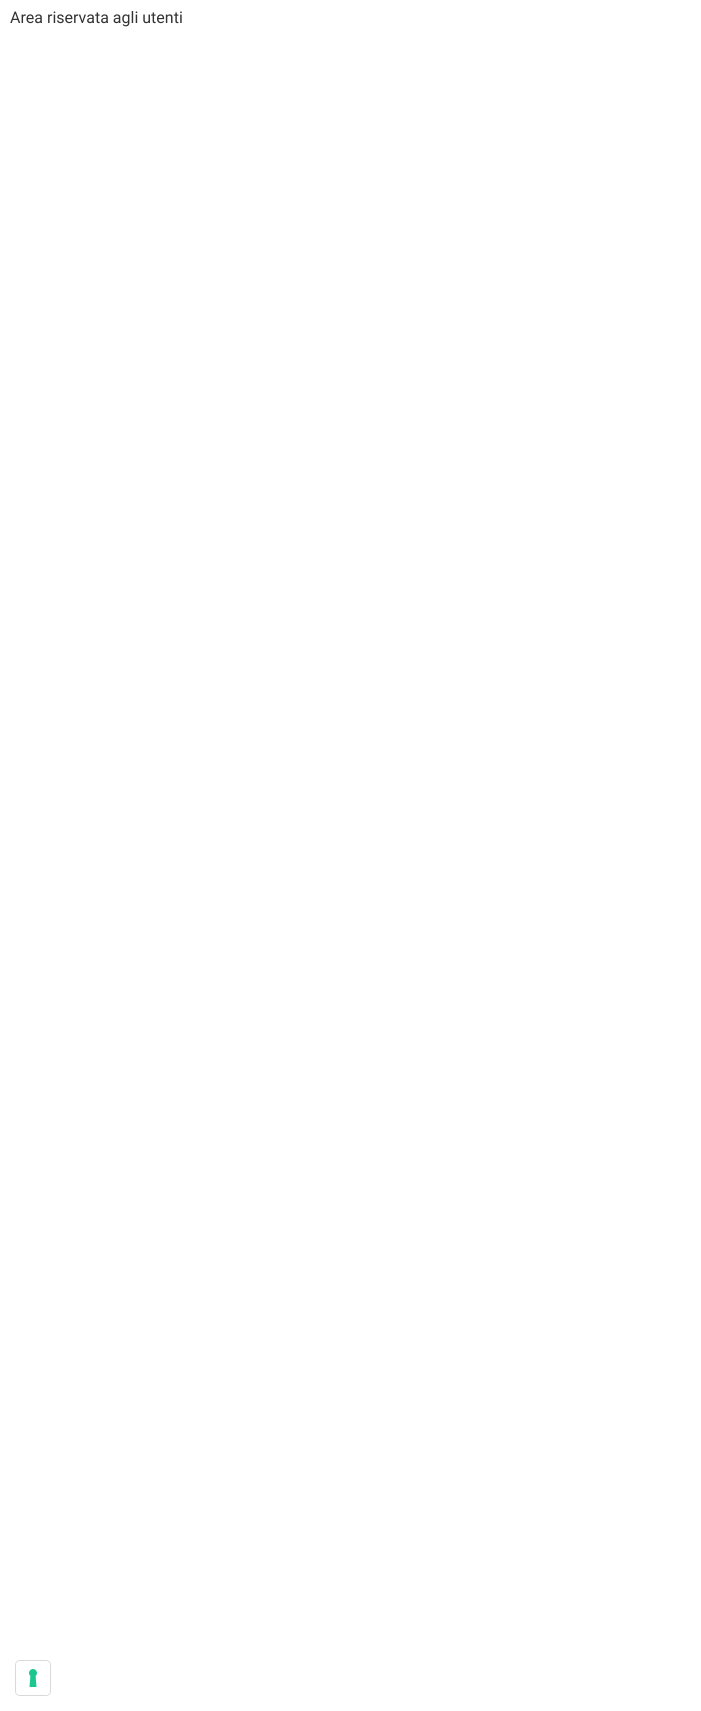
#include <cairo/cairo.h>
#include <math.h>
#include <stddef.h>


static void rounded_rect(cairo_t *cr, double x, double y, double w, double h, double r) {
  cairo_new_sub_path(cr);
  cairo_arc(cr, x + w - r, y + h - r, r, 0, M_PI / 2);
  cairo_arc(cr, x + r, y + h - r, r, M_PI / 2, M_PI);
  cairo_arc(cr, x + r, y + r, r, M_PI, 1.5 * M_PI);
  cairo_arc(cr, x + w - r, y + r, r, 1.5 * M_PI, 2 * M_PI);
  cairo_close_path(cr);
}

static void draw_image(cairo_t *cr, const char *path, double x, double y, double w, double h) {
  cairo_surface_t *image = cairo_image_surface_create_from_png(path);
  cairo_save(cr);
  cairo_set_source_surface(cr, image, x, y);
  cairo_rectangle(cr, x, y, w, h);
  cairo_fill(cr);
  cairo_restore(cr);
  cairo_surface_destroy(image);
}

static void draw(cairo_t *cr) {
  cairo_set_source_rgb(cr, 1, 1, 1);
  cairo_paint(cr);
  rounded_rect(cr, 15.5, 1660.5, 35, 35, 4.5);
  cairo_set_source_rgb(cr, 217 / 255.0, 217 / 255.0, 217 / 255.0);
  cairo_set_line_width(cr, 1);
  cairo_stroke(cr);
  cairo_set_source_rgb(cr, 1, 1, 1);
  rounded_rect(cr, 16, 1661, 34, 34, 4);
  cairo_fill(cr);
  draw_image(cr, "images/1.png", 29, 1669, 8, 18);
  cairo_select_font_face(cr, "Roboto", CAIRO_FONT_SLANT_NORMAL, CAIRO_FONT_WEIGHT_NORMAL);
  cairo_set_font_size(cr, 16);
  cairo_set_source_rgb(cr, 51 / 255.0, 51 / 255.0, 51 / 255.0);
  cairo_move_to(cr, 10, 23);
  cairo_show_text(cr, "Area riservata agli utenti");
}

int main(void) {
  cairo_surface_t *surface = cairo_image_surface_create(CAIRO_FORMAT_RGB24, 701, 1711);
  cairo_t *cr = cairo_create(surface);
  cairo_font_options_t *options = cairo_font_options_create();
  cairo_font_options_set_hint_metrics(options, CAIRO_HINT_METRICS_OFF);
  cairo_font_options_set_hint_style(options, CAIRO_HINT_STYLE_NONE);
  cairo_set_font_options(cr, options);
  cairo_set_miter_limit(cr, 4);
  draw(cr);
  cairo_surface_write_to_png(surface, "out.png");
  cairo_font_options_destroy(options);
  cairo_destroy(cr);
  cairo_surface_destroy(surface);
  return 0;
}
